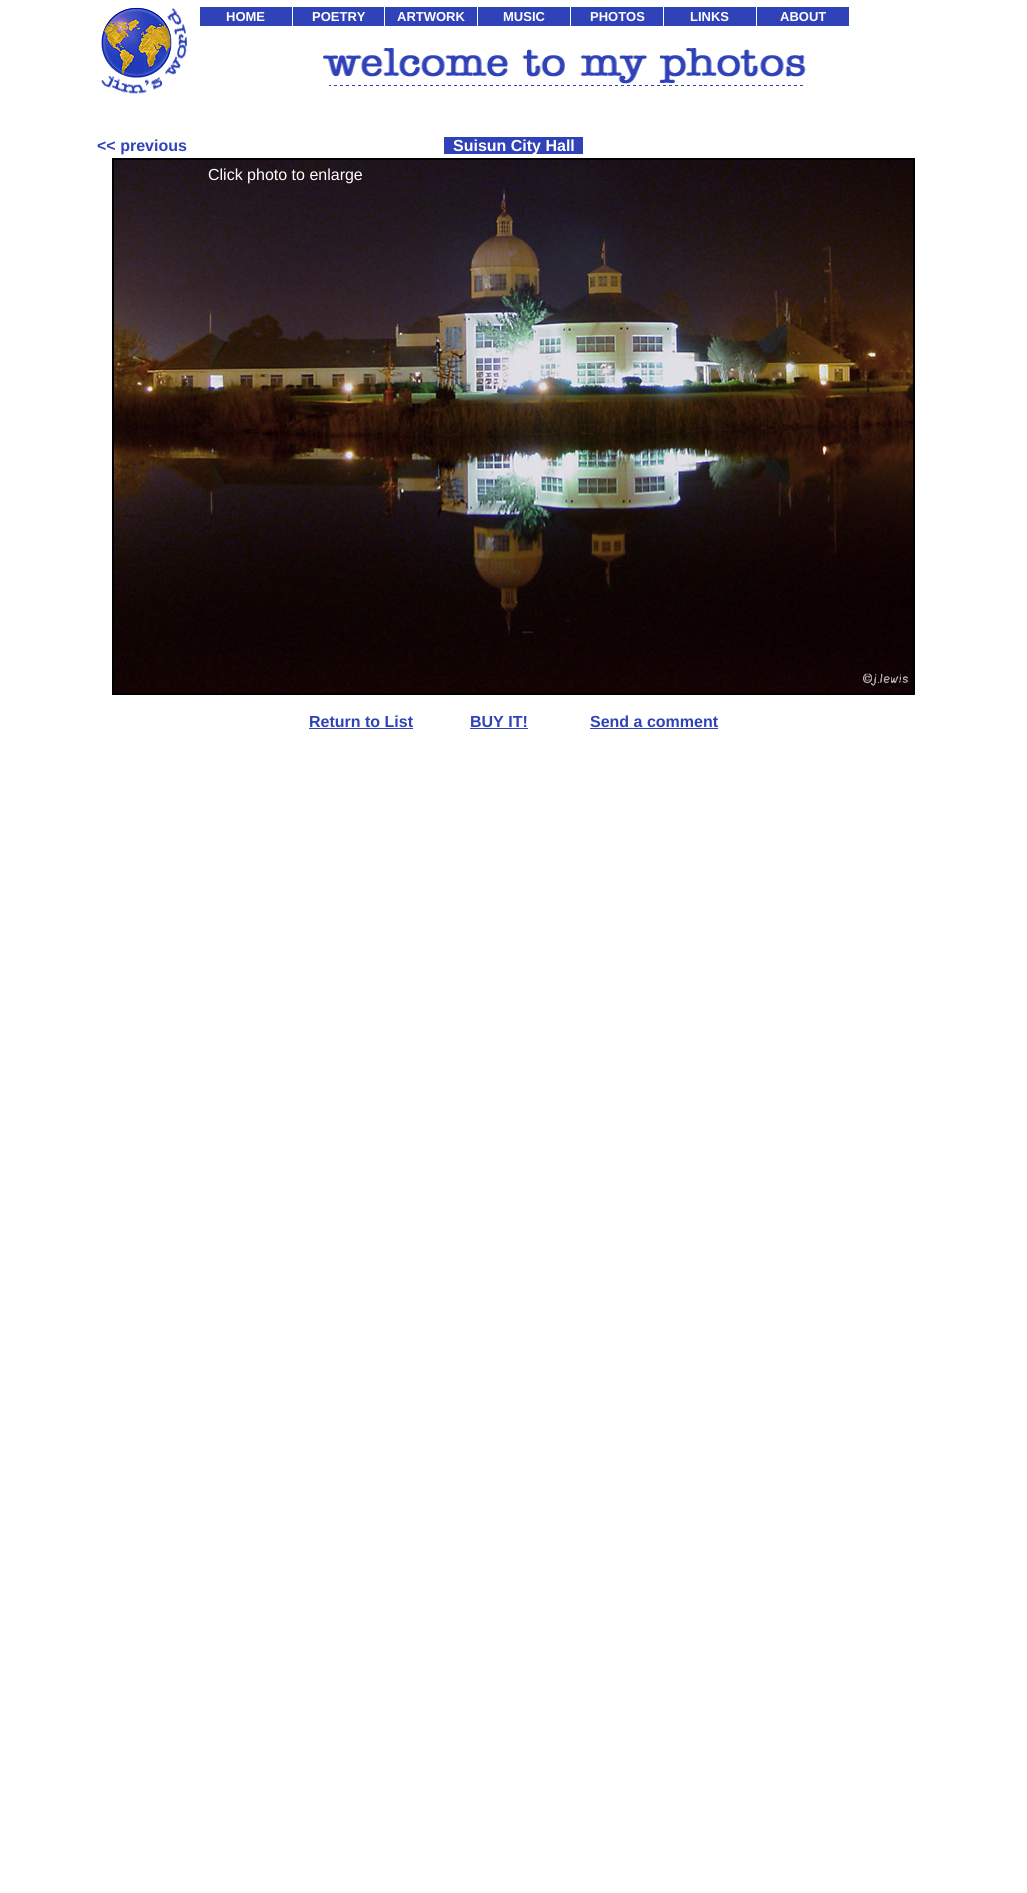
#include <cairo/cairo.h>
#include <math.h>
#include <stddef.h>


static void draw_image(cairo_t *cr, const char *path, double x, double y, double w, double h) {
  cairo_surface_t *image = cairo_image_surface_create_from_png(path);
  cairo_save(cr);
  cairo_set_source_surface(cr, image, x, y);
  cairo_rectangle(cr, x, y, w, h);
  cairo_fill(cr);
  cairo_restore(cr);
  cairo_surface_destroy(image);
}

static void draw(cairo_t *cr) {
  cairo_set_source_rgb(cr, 1, 1, 1);
  cairo_paint(cr);
  draw_image(cr, "images/1.png", 101, 7, 87, 87);
  cairo_set_source_rgb(cr, 47 / 255.0, 66 / 255.0, 184 / 255.0);
  cairo_rectangle(cr, 200, 7, 92, 19);
  cairo_fill(cr);
  cairo_rectangle(cr, 293, 7, 91, 19);
  cairo_fill(cr);
  cairo_rectangle(cr, 385, 7, 92, 19);
  cairo_fill(cr);
  cairo_rectangle(cr, 478, 7, 92, 19);
  cairo_fill(cr);
  cairo_rectangle(cr, 571, 7, 92, 19);
  cairo_fill(cr);
  cairo_rectangle(cr, 664, 7, 92, 19);
  cairo_fill(cr);
  cairo_rectangle(cr, 757, 7, 92, 19);
  cairo_fill(cr);
  draw_image(cr, "images/2.png", 323, 48, 483, 36);
  draw_image(cr, "images/3.png", 329, 85, 474, 1);
  cairo_rectangle(cr, 444, 137, 139, 17);
  cairo_fill(cr);
  cairo_rectangle(cr, 113, 159, 801, 535);
  cairo_set_source_rgb(cr, 0, 0, 0);
  cairo_stroke(cr);
  draw_image(cr, "images/4.png", 114, 160, 799, 533);
  cairo_set_source_rgb(cr, 47 / 255.0, 66 / 255.0, 184 / 255.0);
  cairo_rectangle(cr, 309, 728, 104, 1);
  cairo_fill(cr);
  cairo_rectangle(cr, 470, 728, 58, 1);
  cairo_fill(cr);
  cairo_rectangle(cr, 590, 728, 128, 1);
  cairo_fill(cr);
  cairo_select_font_face(cr, "Liberation Sans", CAIRO_FONT_SLANT_NORMAL, CAIRO_FONT_WEIGHT_BOLD);
  cairo_set_font_size(cr, 13);
  cairo_set_source_rgb(cr, 1, 1, 1);
  cairo_move_to(cr, 226, 21);
  cairo_show_text(cr, "HOME");
  cairo_move_to(cr, 312, 21);
  cairo_show_text(cr, "POETRY");
  cairo_move_to(cr, 397, 21);
  cairo_show_text(cr, "ARTWORK");
  cairo_move_to(cr, 503, 21);
  cairo_show_text(cr, "MUSIC");
  cairo_move_to(cr, 590, 21);
  cairo_show_text(cr, "PHOTOS");
  cairo_move_to(cr, 690, 21);
  cairo_show_text(cr, "LINKS");
  cairo_move_to(cr, 780, 21);
  cairo_show_text(cr, "ABOUT");
  cairo_set_font_size(cr, 16);
  cairo_set_source_rgb(cr, 47 / 255.0, 66 / 255.0, 184 / 255.0);
  cairo_move_to(cr, 97, 151);
  cairo_show_text(cr, "<< previous");
  cairo_set_source_rgb(cr, 1, 1, 1);
  cairo_move_to(cr, 453, 151);
  cairo_show_text(cr, "Suisun City Hall");
  cairo_select_font_face(cr, "Liberation Sans", CAIRO_FONT_SLANT_NORMAL, CAIRO_FONT_WEIGHT_NORMAL);
  cairo_move_to(cr, 208, 180);
  cairo_show_text(cr, "Click photo to enlarge");
  cairo_select_font_face(cr, "Liberation Sans", CAIRO_FONT_SLANT_NORMAL, CAIRO_FONT_WEIGHT_BOLD);
  cairo_set_source_rgb(cr, 47 / 255.0, 66 / 255.0, 184 / 255.0);
  cairo_move_to(cr, 309, 727);
  cairo_show_text(cr, "Return to List");
  cairo_move_to(cr, 470, 727);
  cairo_show_text(cr, "BUY IT!");
  cairo_move_to(cr, 590, 727);
  cairo_show_text(cr, "Send a comment");
}

int main(void) {
  cairo_surface_t *surface = cairo_image_surface_create(CAIRO_FORMAT_RGB24, 1027, 1893);
  cairo_t *cr = cairo_create(surface);
  cairo_font_options_t *options = cairo_font_options_create();
  cairo_font_options_set_hint_metrics(options, CAIRO_HINT_METRICS_OFF);
  cairo_font_options_set_hint_style(options, CAIRO_HINT_STYLE_NONE);
  cairo_set_font_options(cr, options);
  cairo_set_miter_limit(cr, 4);
  draw(cr);
  cairo_surface_write_to_png(surface, "out.png");
  cairo_font_options_destroy(options);
  cairo_destroy(cr);
  cairo_surface_destroy(surface);
  return 0;
}
